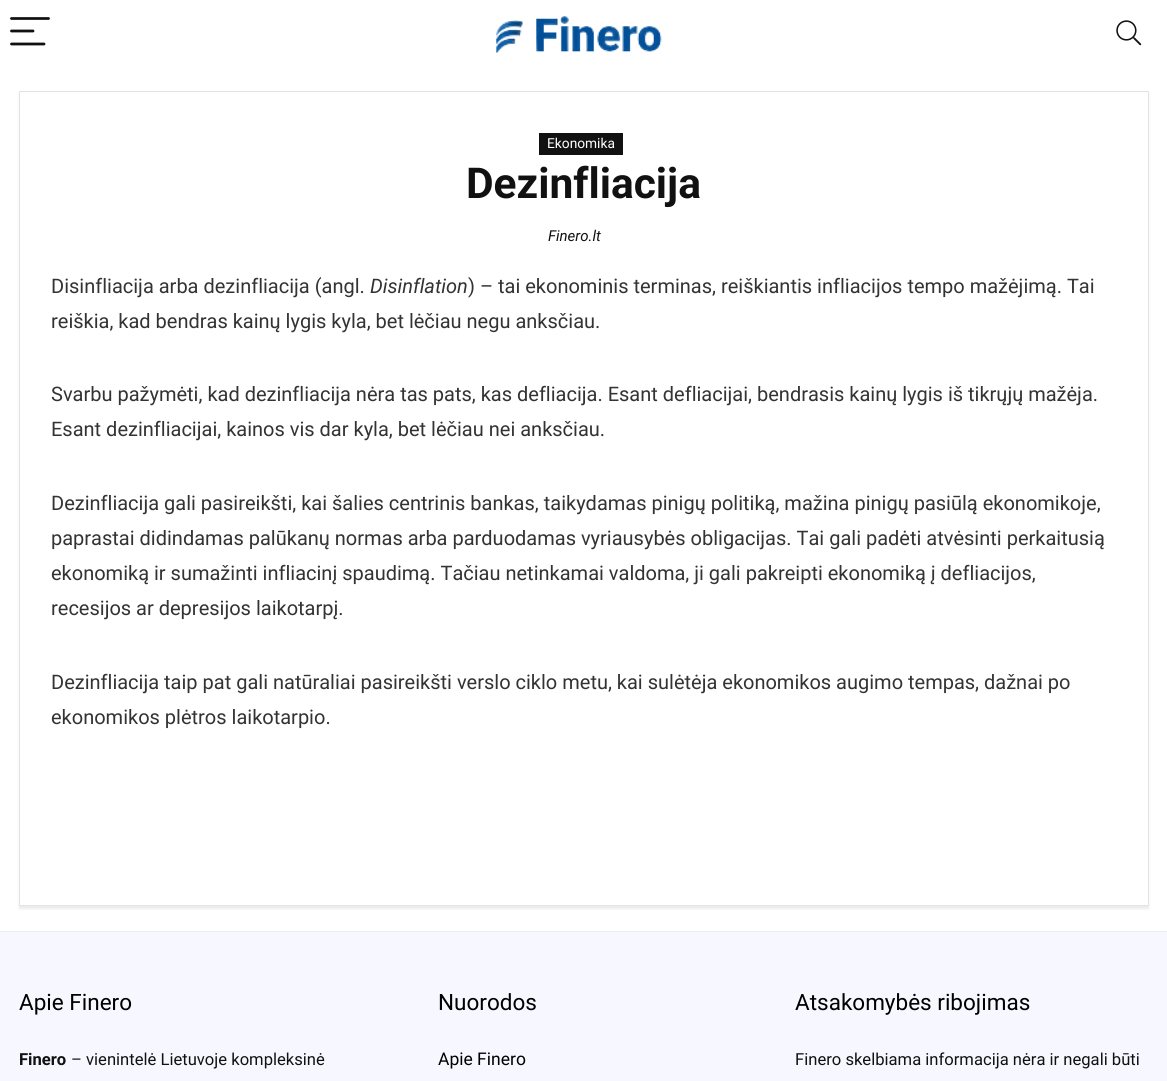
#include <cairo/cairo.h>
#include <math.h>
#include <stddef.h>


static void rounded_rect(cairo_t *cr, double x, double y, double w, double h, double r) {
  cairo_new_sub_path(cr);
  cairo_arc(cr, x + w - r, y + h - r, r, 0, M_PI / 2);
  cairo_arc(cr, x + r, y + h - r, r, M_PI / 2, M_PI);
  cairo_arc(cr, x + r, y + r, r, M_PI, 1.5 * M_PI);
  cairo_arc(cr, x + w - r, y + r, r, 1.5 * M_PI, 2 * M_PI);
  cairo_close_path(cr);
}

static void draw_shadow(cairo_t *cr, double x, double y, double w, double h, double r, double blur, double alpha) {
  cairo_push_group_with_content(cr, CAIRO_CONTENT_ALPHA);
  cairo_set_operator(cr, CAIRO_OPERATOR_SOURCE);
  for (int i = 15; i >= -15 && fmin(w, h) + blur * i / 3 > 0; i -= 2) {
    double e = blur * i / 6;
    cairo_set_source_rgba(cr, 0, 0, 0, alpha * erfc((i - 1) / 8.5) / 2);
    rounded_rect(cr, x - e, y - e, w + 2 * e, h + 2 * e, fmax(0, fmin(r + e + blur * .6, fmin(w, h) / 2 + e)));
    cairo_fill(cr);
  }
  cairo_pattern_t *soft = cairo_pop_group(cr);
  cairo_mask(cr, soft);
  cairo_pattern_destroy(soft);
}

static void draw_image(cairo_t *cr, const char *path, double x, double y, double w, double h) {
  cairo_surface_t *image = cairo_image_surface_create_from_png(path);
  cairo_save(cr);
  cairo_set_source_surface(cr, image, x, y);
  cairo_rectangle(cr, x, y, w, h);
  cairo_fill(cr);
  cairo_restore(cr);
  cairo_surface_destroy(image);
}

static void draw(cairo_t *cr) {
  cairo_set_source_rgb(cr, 1, 1, 1);
  cairo_paint(cr);
  cairo_new_path(cr);
  cairo_move_to(cr, 11.5, 18.5);
  cairo_line_to(cr, 48.5, 18.5);
  cairo_move_to(cr, 11.5, 31);
  cairo_line_to(cr, 33, 31);
  cairo_move_to(cr, 11.5, 44);
  cairo_line_to(cr, 44, 44);
  cairo_set_source_rgb(cr, 17 / 255.0, 17 / 255.0, 17 / 255.0);
  cairo_set_line_width(cr, 2.8);
  cairo_set_line_cap(cr, CAIRO_LINE_CAP_ROUND);
  cairo_stroke(cr);
  draw_image(cr, "images/1.png", 496, 16, 166, 37);
  draw_image(cr, "images/2.png", 1116, 20, 26, 26);
  cairo_set_source_rgb(cr, 236 / 255.0, 236 / 255.0, 236 / 255.0);
  draw_shadow(cr, 19, 94, 1130, 815, 0, 1, 1);
  cairo_set_source_rgb(cr, 1, 1, 1);
  cairo_rectangle(cr, 20, 93, 1128, 812);
  cairo_fill(cr);
  cairo_rectangle(cr, 19.5, 91.5, 1129, 814);
  cairo_set_source_rgb(cr, 227 / 255.0, 227 / 255.0, 227 / 255.0);
  cairo_set_line_width(cr, 1);
  cairo_set_line_cap(cr, CAIRO_LINE_CAP_BUTT);
  cairo_stroke(cr);
  cairo_set_source_rgb(cr, 17 / 255.0, 17 / 255.0, 17 / 255.0);
  cairo_rectangle(cr, 539, 133, 84, 22);
  cairo_fill(cr);
  cairo_set_source_rgb(cr, 247 / 255.0, 248 / 255.0, 1);
  cairo_rectangle(cr, 0, 932, 1167, 149);
  cairo_fill(cr);
  cairo_set_source_rgb(cr, 238 / 255.0, 238 / 255.0, 238 / 255.0);
  cairo_rectangle(cr, 0, 931, 1167, 1);
  cairo_fill(cr);
  cairo_select_font_face(cr, "Roboto", CAIRO_FONT_SLANT_NORMAL, CAIRO_FONT_WEIGHT_NORMAL);
  cairo_set_font_size(cr, 13.75);
  cairo_set_source_rgb(cr, 1, 1, 1);
  cairo_move_to(cr, 547, 148);
  cairo_show_text(cr, "Ekonomika");
  cairo_select_font_face(cr, "Roboto", CAIRO_FONT_SLANT_NORMAL, CAIRO_FONT_WEIGHT_BOLD);
  cairo_set_font_size(cr, 42.5);
  cairo_set_source_rgb(cr, 17 / 255.0, 17 / 255.0, 17 / 255.0);
  cairo_move_to(cr, 466, 198);
  cairo_show_text(cr, "Dezinfliacija");
  cairo_select_font_face(cr, "Roboto", CAIRO_FONT_SLANT_ITALIC, CAIRO_FONT_WEIGHT_NORMAL);
  cairo_set_font_size(cr, 15);
  cairo_move_to(cr, 548, 241);
  cairo_show_text(cr, "Finero.lt");
  cairo_select_font_face(cr, "Roboto", CAIRO_FONT_SLANT_NORMAL, CAIRO_FONT_WEIGHT_NORMAL);
  cairo_set_font_size(cr, 20);
  cairo_set_source_rgb(cr, 51 / 255.0, 51 / 255.0, 51 / 255.0);
  cairo_move_to(cr, 51, 293);
  cairo_show_text(cr, "Disinfliacija arba dezinfliacija (angl.");
  cairo_select_font_face(cr, "Roboto", CAIRO_FONT_SLANT_ITALIC, CAIRO_FONT_WEIGHT_NORMAL);
  cairo_move_to(cr, 370, 293);
  cairo_show_text(cr, "Disinflation");
  cairo_select_font_face(cr, "Roboto", CAIRO_FONT_SLANT_NORMAL, CAIRO_FONT_WEIGHT_NORMAL);
  cairo_move_to(cr, 468, 293);
  cairo_show_text(cr, ") – tai ekonominis terminas, reiškiantis infliacijos tempo mažėjimą. Tai");
  cairo_move_to(cr, 51, 328);
  cairo_show_text(cr, "reiškia, kad bendras kainų lygis kyla, bet lėčiau negu anksčiau.");
  cairo_move_to(cr, 51, 401);
  cairo_show_text(cr, "Svarbu pažymėti, kad dezinfliacija nėra tas pats, kas defliacija. Esant defliacijai, bendrasis kainų lygis iš tikrųjų mažėja.");
  cairo_move_to(cr, 51, 436);
  cairo_show_text(cr, "Esant dezinfliacijai, kainos vis dar kyla, bet lėčiau nei anksčiau.");
  cairo_move_to(cr, 51, 510);
  cairo_show_text(cr, "Dezinfliacija gali pasireikšti, kai šalies centrinis bankas, taikydamas pinigų politiką, mažina pinigų pasiūlą ekonomikoje,");
  cairo_move_to(cr, 51, 545);
  cairo_show_text(cr, "paprastai didindamas palūkanų normas arba parduodamas vyriausybės obligacijas. Tai gali padėti atvėsinti perkaitusią");
  cairo_move_to(cr, 51, 580);
  cairo_show_text(cr, "ekonomiką ir sumažinti infliacinį spaudimą. Tačiau netinkamai valdoma, ji gali pakreipti ekonomiką į defliacijos,");
  cairo_move_to(cr, 51, 615);
  cairo_show_text(cr, "recesijos ar depresijos laikotarpį.");
  cairo_move_to(cr, 51, 689);
  cairo_show_text(cr, "Dezinfliacija taip pat gali natūraliai pasireikšti verslo ciklo metu, kai sulėtėja ekonomikos augimo tempas, dažnai po");
  cairo_move_to(cr, 51, 724);
  cairo_show_text(cr, "ekonomikos plėtros laikotarpio.");
  cairo_set_font_size(cr, 22.5);
  cairo_set_source_rgb(cr, 0, 0, 0);
  cairo_move_to(cr, 19, 1010);
  cairo_show_text(cr, "Apie Finero");
  cairo_select_font_face(cr, "Roboto", CAIRO_FONT_SLANT_NORMAL, CAIRO_FONT_WEIGHT_BOLD);
  cairo_set_font_size(cr, 16.6);
  cairo_set_source_rgb(cr, 17 / 255.0, 17 / 255.0, 17 / 255.0);
  cairo_move_to(cr, 19, 1065);
  cairo_show_text(cr, "Finero");
  cairo_select_font_face(cr, "Roboto", CAIRO_FONT_SLANT_NORMAL, CAIRO_FONT_WEIGHT_NORMAL);
  cairo_move_to(cr, 71, 1065);
  cairo_show_text(cr, "– vienintelė Lietuvoje kompleksinė");
  cairo_set_font_size(cr, 22.5);
  cairo_set_source_rgb(cr, 0, 0, 0);
  cairo_move_to(cr, 438, 1010);
  cairo_show_text(cr, "Nuorodos");
  cairo_set_font_size(cr, 17.5);
  cairo_move_to(cr, 438, 1065);
  cairo_show_text(cr, "Apie Finero");
  cairo_set_font_size(cr, 22.5);
  cairo_move_to(cr, 795, 1010);
  cairo_show_text(cr, "Atsakomybės ribojimas");
  cairo_set_font_size(cr, 16.6);
  cairo_set_source_rgb(cr, 17 / 255.0, 17 / 255.0, 17 / 255.0);
  cairo_move_to(cr, 795, 1065);
  cairo_show_text(cr, "Finero skelbiama informacija nėra ir negali būti");
}

int main(void) {
  cairo_surface_t *surface = cairo_image_surface_create(CAIRO_FORMAT_RGB24, 1167, 1081);
  cairo_t *cr = cairo_create(surface);
  cairo_font_options_t *options = cairo_font_options_create();
  cairo_font_options_set_hint_metrics(options, CAIRO_HINT_METRICS_OFF);
  cairo_font_options_set_hint_style(options, CAIRO_HINT_STYLE_NONE);
  cairo_set_font_options(cr, options);
  cairo_set_miter_limit(cr, 4);
  draw(cr);
  cairo_surface_write_to_png(surface, "out.png");
  cairo_font_options_destroy(options);
  cairo_destroy(cr);
  cairo_surface_destroy(surface);
  return 0;
}
